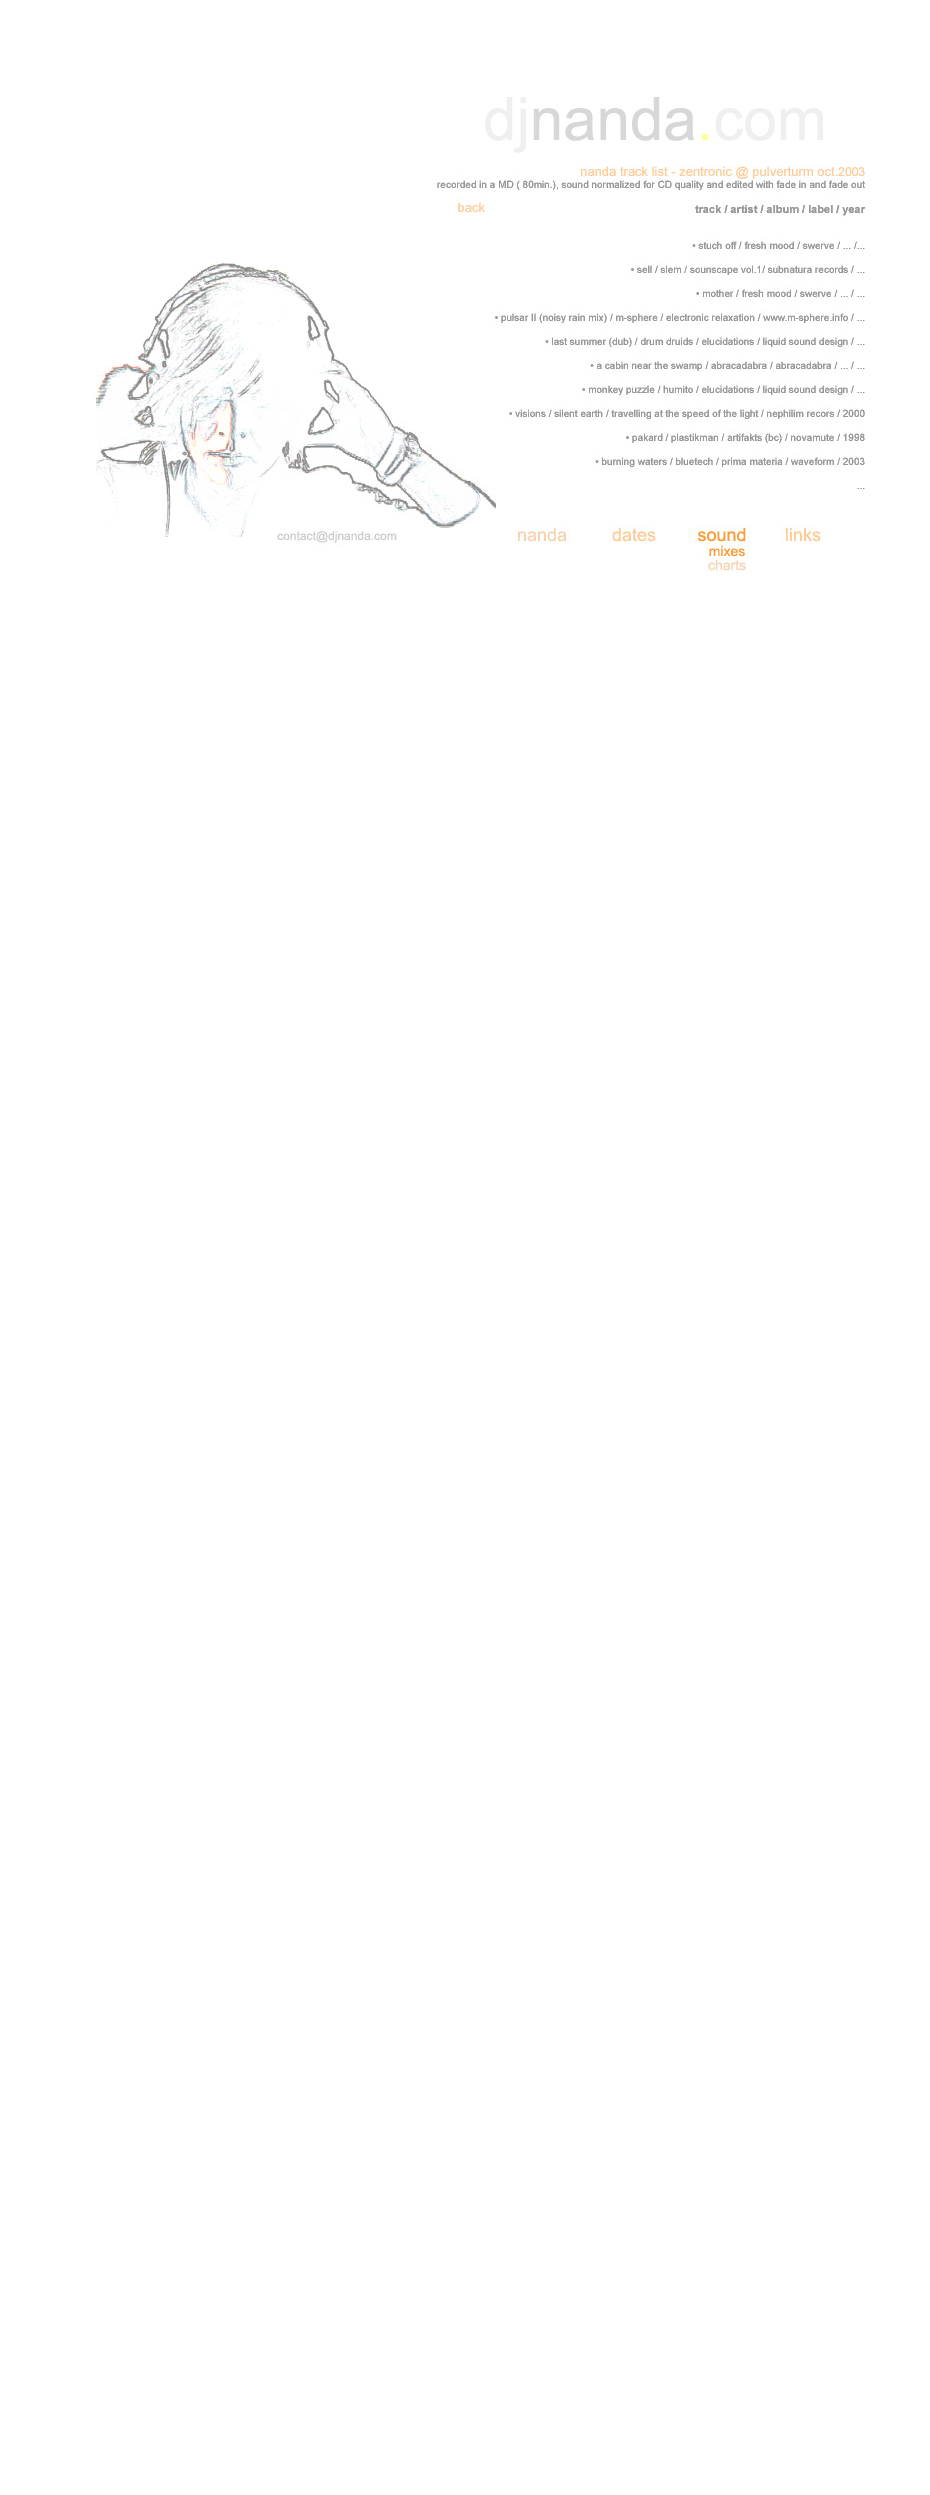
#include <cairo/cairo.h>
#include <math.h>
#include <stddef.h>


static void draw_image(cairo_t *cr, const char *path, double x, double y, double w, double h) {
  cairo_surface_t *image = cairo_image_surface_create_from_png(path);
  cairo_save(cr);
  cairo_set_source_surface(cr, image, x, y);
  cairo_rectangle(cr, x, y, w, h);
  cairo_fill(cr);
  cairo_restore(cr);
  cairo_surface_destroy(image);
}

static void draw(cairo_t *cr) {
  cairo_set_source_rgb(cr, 1, 1, 1);
  cairo_paint(cr);
  draw_image(cr, "images/1.png", 485, 97, 338, 56);
  draw_image(cr, "images/2.png", 137, 262, 207, 101);
  draw_image(cr, "images/3.png", 400, 166, 465, 358);
  draw_image(cr, "images/4.png", 94, 363, 306, 161);
  draw_image(cr, "images/5.png", 165, 524, 81, 14);
  draw_image(cr, "images/6.png", 277, 530, 120, 17);
  draw_image(cr, "images/7.png", 433, 524, 24, 4);
  draw_image(cr, "images/8.png", 514, 524, 56, 20);
  draw_image(cr, "images/9.png", 609, 524, 48, 20);
  draw_image(cr, "images/10.png", 694, 524, 55, 20);
  draw_image(cr, "images/11.png", 780, 524, 47, 20);
  draw_image(cr, "images/12.png", 702, 544, 47, 14);
  draw_image(cr, "images/13.png", 702, 558, 47, 14);
}

int main(void) {
  cairo_surface_t *surface = cairo_image_surface_create(CAIRO_FORMAT_RGB24, 930, 2495);
  cairo_t *cr = cairo_create(surface);
  cairo_font_options_t *options = cairo_font_options_create();
  cairo_font_options_set_hint_metrics(options, CAIRO_HINT_METRICS_OFF);
  cairo_font_options_set_hint_style(options, CAIRO_HINT_STYLE_NONE);
  cairo_set_font_options(cr, options);
  cairo_set_miter_limit(cr, 4);
  draw(cr);
  cairo_surface_write_to_png(surface, "out.png");
  cairo_font_options_destroy(options);
  cairo_destroy(cr);
  cairo_surface_destroy(surface);
  return 0;
}
